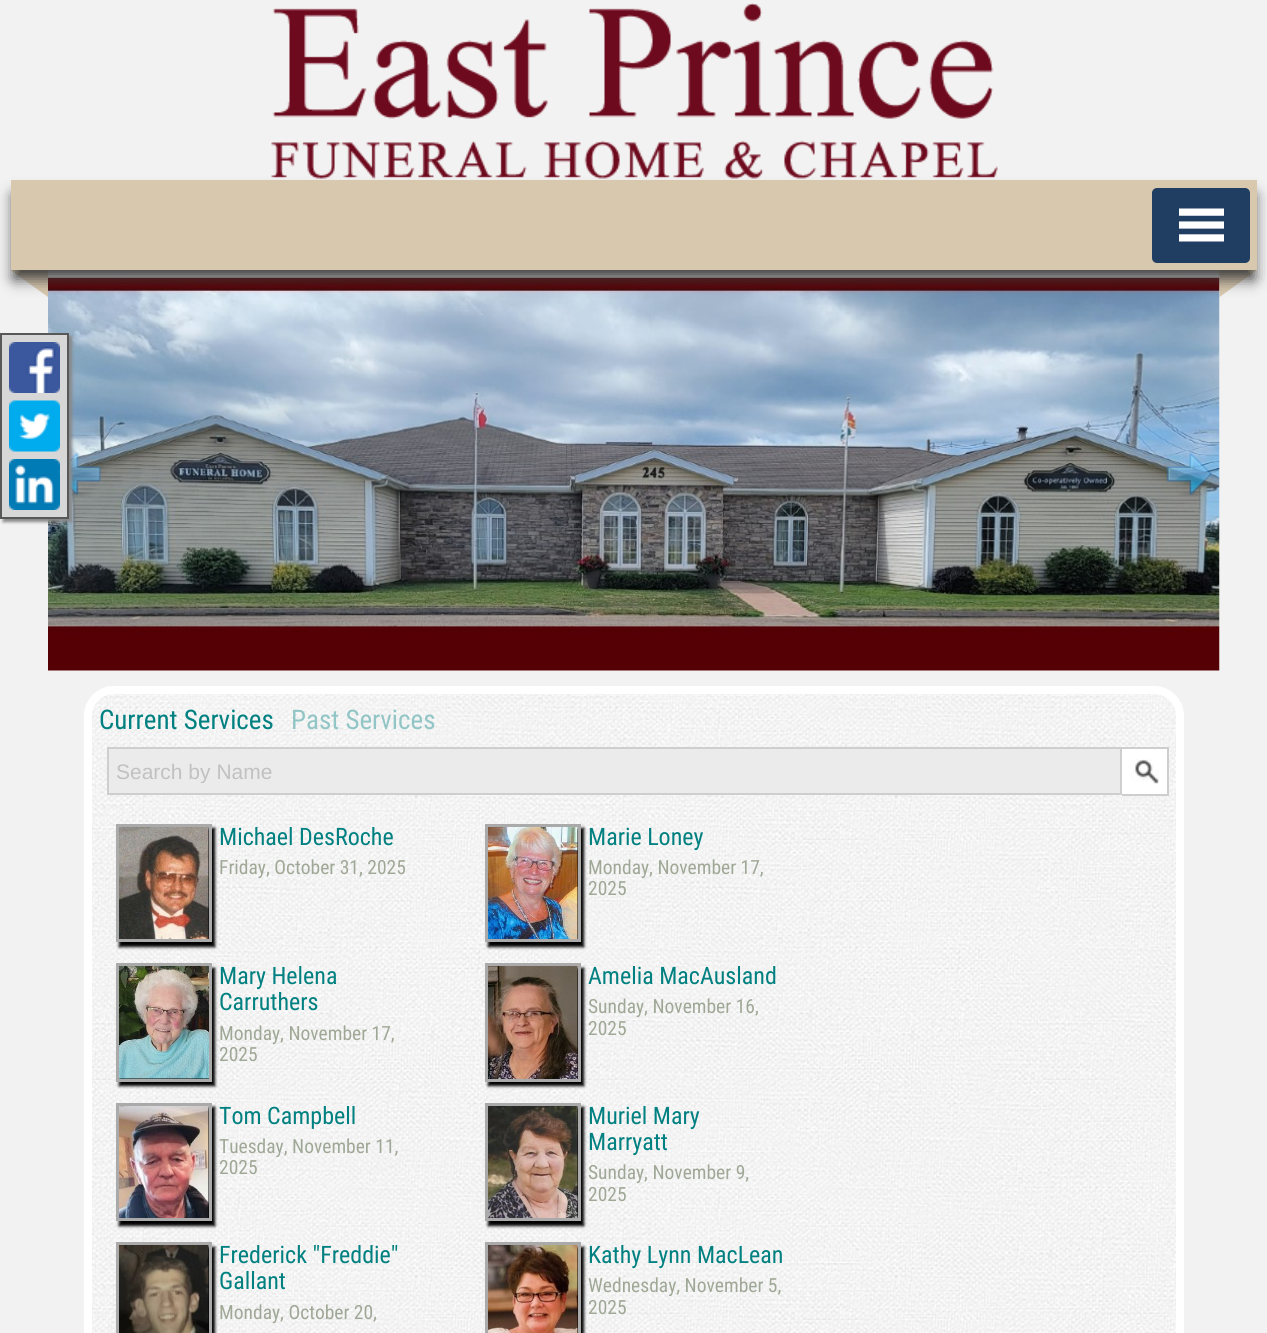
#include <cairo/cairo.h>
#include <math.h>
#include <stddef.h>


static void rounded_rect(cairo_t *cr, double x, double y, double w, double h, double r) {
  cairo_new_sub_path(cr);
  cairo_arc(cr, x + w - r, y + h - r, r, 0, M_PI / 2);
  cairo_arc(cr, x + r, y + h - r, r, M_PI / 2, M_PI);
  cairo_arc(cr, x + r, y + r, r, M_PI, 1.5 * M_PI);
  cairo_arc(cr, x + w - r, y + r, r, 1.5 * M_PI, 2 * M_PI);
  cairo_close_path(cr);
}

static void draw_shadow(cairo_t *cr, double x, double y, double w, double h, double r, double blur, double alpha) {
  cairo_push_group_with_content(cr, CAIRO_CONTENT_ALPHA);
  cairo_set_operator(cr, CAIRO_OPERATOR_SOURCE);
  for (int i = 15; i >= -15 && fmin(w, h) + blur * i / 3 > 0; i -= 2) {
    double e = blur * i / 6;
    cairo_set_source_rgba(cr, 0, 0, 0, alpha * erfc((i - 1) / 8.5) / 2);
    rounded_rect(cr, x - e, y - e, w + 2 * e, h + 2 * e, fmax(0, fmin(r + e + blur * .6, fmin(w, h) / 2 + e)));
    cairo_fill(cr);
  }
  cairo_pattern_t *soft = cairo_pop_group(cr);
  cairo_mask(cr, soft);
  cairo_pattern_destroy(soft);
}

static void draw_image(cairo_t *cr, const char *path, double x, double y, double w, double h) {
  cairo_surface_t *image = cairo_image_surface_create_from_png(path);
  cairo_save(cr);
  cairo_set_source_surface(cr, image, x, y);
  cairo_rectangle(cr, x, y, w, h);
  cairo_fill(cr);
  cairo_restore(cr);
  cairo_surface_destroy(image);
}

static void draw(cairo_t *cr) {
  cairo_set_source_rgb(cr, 243 / 255.0, 242 / 255.0, 242 / 255.0);
  cairo_paint(cr);
  cairo_set_source_rgb(cr, 216 / 255.0, 200 / 255.0, 174 / 255.0);
  cairo_new_path(cr);
  cairo_move_to(cr, 1219.5, 270);
  cairo_line_to(cr, 1257, 270);
  cairo_line_to(cr, 1219.5, 297);
  cairo_close_path(cr);
  cairo_fill(cr);
  draw_image(cr, "images/6.png", 48, 277, 1172, 394);
  draw_image(cr, "images/7.png", 69, 452, 32, 45);
  cairo_set_source_rgb(cr, 136 / 255.0, 136 / 255.0, 136 / 255.0);
  draw_shadow(cr, 3, 336, 69, 186, 0, 1.5, 1);
  cairo_set_source_rgb(cr, 215 / 255.0, 215 / 255.0, 215 / 255.0);
  cairo_rectangle(cr, 1, 334, 67, 184);
  cairo_fill_preserve(cr);
  cairo_set_source_rgb(cr, 88 / 255.0, 88 / 255.0, 88 / 255.0);
  cairo_stroke(cr);
  draw_image(cr, "images/1.png", 9, 342, 51, 51);
  draw_image(cr, "images/2.png", 9, 400, 51, 52);
  draw_image(cr, "images/3.png", 9, 459, 51, 51);
  draw_image(cr, "images/4.png", 271, 3, 727, 176);
  cairo_set_source_rgb(cr, 216 / 255.0, 200 / 255.0, 174 / 255.0);
  cairo_new_path(cr);
  cairo_move_to(cr, 10.5, 270);
  cairo_line_to(cr, 48, 270);
  cairo_line_to(cr, 48, 297);
  cairo_close_path(cr);
  cairo_fill(cr);
  cairo_set_source_rgb(cr, 59 / 255.0, 59 / 255.0, 59 / 255.0);
  draw_shadow(cr, 14, 195, 1240, 84, 0, 7.5, 1);
  cairo_set_source_rgb(cr, 216 / 255.0, 200 / 255.0, 174 / 255.0);
  cairo_rectangle(cr, 11, 180, 1246, 90);
  cairo_fill(cr);
  cairo_set_source_rgb(cr, 31 / 255.0, 62 / 255.0, 98 / 255.0);
  rounded_rect(cr, 1152, 188, 98, 75, 5);
  cairo_fill(cr);
  draw_image(cr, "images/5.png", 1179, 208, 45, 34);
  draw_image(cr, "images/8.png", 1166, 453, 47, 43);
  draw_image(cr, "images/9.png", 84, 686, 1099, 647);
  rounded_rect(cr, 88, 690, 1092, 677, 26);
  cairo_set_source_rgb(cr, 1, 1, 1);
  cairo_set_line_width(cr, 8);
  cairo_stroke(cr);
  cairo_set_source_rgb(cr, 235 / 255.0, 235 / 255.0, 235 / 255.0);
  cairo_rectangle(cr, 108, 748, 1013, 46);
  cairo_fill_preserve(cr);
  cairo_set_source_rgb(cr, 206 / 255.0, 206 / 255.0, 206 / 255.0);
  cairo_set_line_width(cr, 2);
  cairo_stroke(cr);
  cairo_set_source_rgb(cr, 1, 1, 1);
  cairo_rectangle(cr, 1122, 749, 45, 45);
  cairo_fill(cr);
  draw_image(cr, "images/10.png", 1131, 759, 28, 25);
  cairo_set_source_rgb(cr, 206 / 255.0, 206 / 255.0, 206 / 255.0);
  cairo_rectangle(cr, 1122, 747, 47, 2);
  cairo_fill(cr);
  cairo_rectangle(cr, 1167, 747, 2, 48);
  cairo_fill(cr);
  cairo_rectangle(cr, 1122, 794, 47, 2);
  cairo_fill(cr);
  cairo_set_source_rgb(cr, 0, 0, 0);
  draw_shadow(cr, 119, 828, 96, 119, 0, 1.5, 1);
  draw_image(cr, "images/11.png", 119, 827, 90, 112);
  cairo_rectangle(cr, 117.5, 825.5, 93, 115);
  cairo_set_source_rgb(cr, 170 / 255.0, 170 / 255.0, 170 / 255.0);
  cairo_set_line_width(cr, 3);
  cairo_stroke(cr);
  cairo_set_source_rgb(cr, 0, 0, 0);
  draw_shadow(cr, 488, 828, 96, 119, 0, 1.5, 1);
  draw_image(cr, "images/12.png", 488, 827, 90, 112);
  cairo_rectangle(cr, 486.5, 825.5, 93, 115);
  cairo_set_source_rgb(cr, 170 / 255.0, 170 / 255.0, 170 / 255.0);
  cairo_stroke(cr);
  cairo_set_source_rgb(cr, 0, 0, 0);
  draw_shadow(cr, 119, 968, 96, 118, 0, 1.5, 1);
  draw_image(cr, "images/13.png", 119, 966, 90, 113);
  cairo_rectangle(cr, 117.5, 964.5, 93, 116);
  cairo_set_source_rgb(cr, 170 / 255.0, 170 / 255.0, 170 / 255.0);
  cairo_stroke(cr);
  cairo_set_source_rgb(cr, 0, 0, 0);
  draw_shadow(cr, 488, 968, 96, 118, 0, 1.5, 1);
  draw_image(cr, "images/14.png", 488, 966, 90, 113);
  cairo_rectangle(cr, 486.5, 964.5, 93, 116);
  cairo_set_source_rgb(cr, 170 / 255.0, 170 / 255.0, 170 / 255.0);
  cairo_stroke(cr);
  cairo_set_source_rgb(cr, 0, 0, 0);
  draw_shadow(cr, 119, 1107, 96, 119, 0, 1.5, 1);
  draw_image(cr, "images/15.png", 119, 1106, 90, 112);
  cairo_rectangle(cr, 117.5, 1104.5, 93, 115);
  cairo_set_source_rgb(cr, 170 / 255.0, 170 / 255.0, 170 / 255.0);
  cairo_stroke(cr);
  cairo_set_source_rgb(cr, 0, 0, 0);
  draw_shadow(cr, 488, 1107, 96, 119, 0, 1.5, 1);
  draw_image(cr, "images/16.png", 488, 1106, 90, 112);
  cairo_rectangle(cr, 486.5, 1104.5, 93, 115);
  cairo_set_source_rgb(cr, 170 / 255.0, 170 / 255.0, 170 / 255.0);
  cairo_stroke(cr);
  cairo_set_source_rgb(cr, 0, 0, 0);
  draw_shadow(cr, 119, 1247, 96, 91, 0, 1.5, 1);
  draw_image(cr, "images/17.png", 119, 1245, 90, 88);
  cairo_rectangle(cr, 117.5, 1243.5, 93, 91);
  cairo_set_source_rgb(cr, 170 / 255.0, 170 / 255.0, 170 / 255.0);
  cairo_stroke(cr);
  cairo_set_source_rgb(cr, 0, 0, 0);
  draw_shadow(cr, 488, 1247, 96, 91, 0, 1.5, 1);
  draw_image(cr, "images/18.png", 488, 1245, 90, 88);
  cairo_rectangle(cr, 486.5, 1243.5, 93, 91);
  cairo_set_source_rgb(cr, 170 / 255.0, 170 / 255.0, 170 / 255.0);
  cairo_stroke(cr);
  cairo_select_font_face(cr, "Roboto Condensed", CAIRO_FONT_SLANT_NORMAL, CAIRO_FONT_WEIGHT_NORMAL);
  cairo_set_font_size(cr, 27);
  cairo_set_source_rgb(cr, 0, 128 / 255.0, 128 / 255.0);
  cairo_move_to(cr, 99, 729);
  cairo_show_text(cr, "Current Services");
  cairo_set_source_rgb(cr, 146 / 255.0, 197 / 255.0, 197 / 255.0);
  cairo_move_to(cr, 291, 729);
  cairo_show_text(cr, "Past Services");
  cairo_save(cr);
  cairo_rectangle(cr, 116, 759, 997, 24);
  cairo_clip(cr);
  cairo_select_font_face(cr, "Liberation Sans", CAIRO_FONT_SLANT_NORMAL, CAIRO_FONT_WEIGHT_NORMAL);
  cairo_set_font_size(cr, 21);
  cairo_set_source_rgb(cr, 193 / 255.0, 193 / 255.0, 193 / 255.0);
  cairo_move_to(cr, 116, 779);
  cairo_show_text(cr, "Search by Name");
  cairo_restore(cr);
  cairo_set_font_size(cr, 24);
  cairo_set_source_rgb(cr, 0, 128 / 255.0, 128 / 255.0);
  cairo_move_to(cr, 219, 845);
  cairo_show_text(cr, "Michael DesRoche");
  cairo_set_font_size(cr, 19.5);
  cairo_set_source_rgb(cr, 159 / 255.0, 168 / 255.0, 150 / 255.0);
  cairo_move_to(cr, 219, 874);
  cairo_show_text(cr, "Friday, October 31, 2025");
  cairo_set_font_size(cr, 24);
  cairo_set_source_rgb(cr, 0, 128 / 255.0, 128 / 255.0);
  cairo_move_to(cr, 588, 845);
  cairo_show_text(cr, "Marie Loney");
  cairo_set_font_size(cr, 19.5);
  cairo_set_source_rgb(cr, 159 / 255.0, 168 / 255.0, 150 / 255.0);
  cairo_move_to(cr, 588, 874);
  cairo_show_text(cr, "Monday, November 17,");
  cairo_move_to(cr, 588, 895);
  cairo_show_text(cr, "2025");
  cairo_set_font_size(cr, 24);
  cairo_set_source_rgb(cr, 0, 128 / 255.0, 128 / 255.0);
  cairo_move_to(cr, 219, 984);
  cairo_show_text(cr, "Mary Helena");
  cairo_move_to(cr, 219, 1010);
  cairo_show_text(cr, "Carruthers");
  cairo_set_font_size(cr, 19.5);
  cairo_set_source_rgb(cr, 159 / 255.0, 168 / 255.0, 150 / 255.0);
  cairo_move_to(cr, 219, 1040);
  cairo_show_text(cr, "Monday, November 17,");
  cairo_move_to(cr, 219, 1061);
  cairo_show_text(cr, "2025");
  cairo_set_font_size(cr, 24);
  cairo_set_source_rgb(cr, 0, 128 / 255.0, 128 / 255.0);
  cairo_move_to(cr, 588, 984);
  cairo_show_text(cr, "Amelia MacAusland");
  cairo_set_font_size(cr, 19.5);
  cairo_set_source_rgb(cr, 159 / 255.0, 168 / 255.0, 150 / 255.0);
  cairo_move_to(cr, 588, 1013);
  cairo_show_text(cr, "Sunday, November 16,");
  cairo_move_to(cr, 588, 1035);
  cairo_show_text(cr, "2025");
  cairo_set_font_size(cr, 24);
  cairo_set_source_rgb(cr, 0, 128 / 255.0, 128 / 255.0);
  cairo_move_to(cr, 219, 1124);
  cairo_show_text(cr, "Tom Campbell");
  cairo_set_font_size(cr, 19.5);
  cairo_set_source_rgb(cr, 159 / 255.0, 168 / 255.0, 150 / 255.0);
  cairo_move_to(cr, 219, 1153);
  cairo_show_text(cr, "Tuesday, November 11,");
  cairo_move_to(cr, 219, 1174);
  cairo_show_text(cr, "2025");
  cairo_set_font_size(cr, 24);
  cairo_set_source_rgb(cr, 0, 128 / 255.0, 128 / 255.0);
  cairo_move_to(cr, 588, 1124);
  cairo_show_text(cr, "Muriel Mary");
  cairo_move_to(cr, 588, 1150);
  cairo_show_text(cr, "Marryatt");
  cairo_set_font_size(cr, 19.5);
  cairo_set_source_rgb(cr, 159 / 255.0, 168 / 255.0, 150 / 255.0);
  cairo_move_to(cr, 588, 1179);
  cairo_show_text(cr, "Sunday, November 9,");
  cairo_move_to(cr, 588, 1201);
  cairo_show_text(cr, "2025");
  cairo_set_font_size(cr, 24);
  cairo_set_source_rgb(cr, 0, 128 / 255.0, 128 / 255.0);
  cairo_move_to(cr, 219, 1263);
  cairo_show_text(cr, "Frederick \"Freddie\"");
  cairo_move_to(cr, 219, 1289);
  cairo_show_text(cr, "Gallant");
  cairo_set_font_size(cr, 19.5);
  cairo_set_source_rgb(cr, 159 / 255.0, 168 / 255.0, 150 / 255.0);
  cairo_move_to(cr, 219, 1319);
  cairo_show_text(cr, "Monday, October 20,");
  cairo_set_font_size(cr, 24);
  cairo_set_source_rgb(cr, 0, 128 / 255.0, 128 / 255.0);
  cairo_move_to(cr, 588, 1263);
  cairo_show_text(cr, "Kathy Lynn MacLean");
  cairo_set_font_size(cr, 19.5);
  cairo_set_source_rgb(cr, 159 / 255.0, 168 / 255.0, 150 / 255.0);
  cairo_move_to(cr, 588, 1292);
  cairo_show_text(cr, "Wednesday, November 5,");
  cairo_move_to(cr, 588, 1314);
  cairo_show_text(cr, "2025");
}

int main(void) {
  cairo_surface_t *surface = cairo_image_surface_create(CAIRO_FORMAT_RGB24, 1267, 1333);
  cairo_t *cr = cairo_create(surface);
  cairo_font_options_t *options = cairo_font_options_create();
  cairo_font_options_set_hint_metrics(options, CAIRO_HINT_METRICS_OFF);
  cairo_font_options_set_hint_style(options, CAIRO_HINT_STYLE_NONE);
  cairo_set_font_options(cr, options);
  cairo_set_miter_limit(cr, 4);
  draw(cr);
  cairo_surface_write_to_png(surface, "out.png");
  cairo_font_options_destroy(options);
  cairo_destroy(cr);
  cairo_surface_destroy(surface);
  return 0;
}
